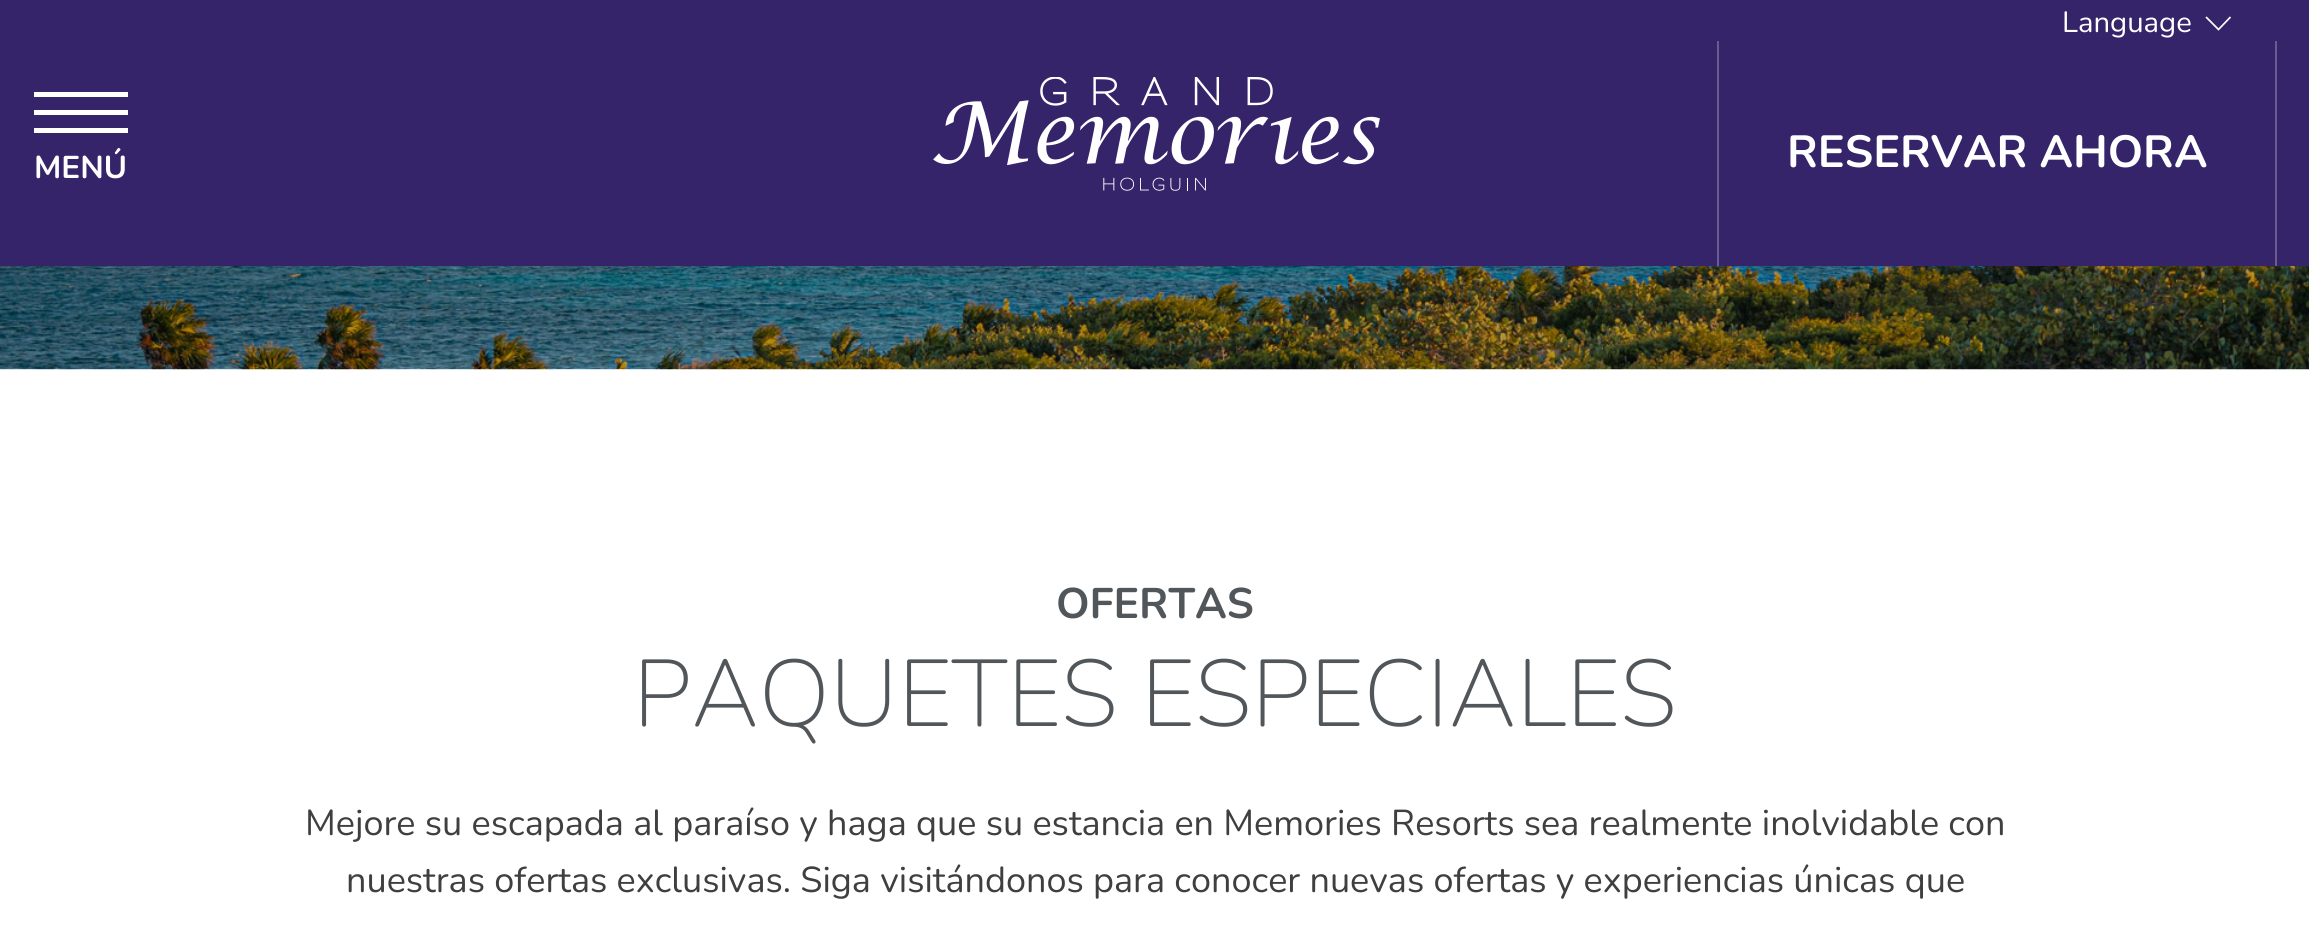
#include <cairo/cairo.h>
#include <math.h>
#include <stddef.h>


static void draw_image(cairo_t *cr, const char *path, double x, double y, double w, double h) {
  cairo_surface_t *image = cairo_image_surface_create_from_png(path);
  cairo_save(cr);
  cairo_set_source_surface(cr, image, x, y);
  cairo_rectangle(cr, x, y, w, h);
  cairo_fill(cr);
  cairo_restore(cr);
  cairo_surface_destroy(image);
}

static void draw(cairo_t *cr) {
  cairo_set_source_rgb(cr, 1, 1, 1);
  cairo_paint(cr);
  cairo_set_source_rgb(cr, 54 / 255.0, 36 / 255.0, 106 / 255.0);
  cairo_rectangle(cr, 0, 0, 2309, 266);
  cairo_fill(cr);
  cairo_set_source_rgb(cr, 1, 1, 1);
  cairo_rectangle(cr, 34, 92, 94, 5);
  cairo_fill(cr);
  cairo_rectangle(cr, 34, 110, 94, 5);
  cairo_fill(cr);
  cairo_rectangle(cr, 34, 128, 94, 5);
  cairo_fill(cr);
  draw_image(cr, "images/1.png", 933, 77, 447, 114);
  cairo_new_path(cr);
  cairo_move_to(cr, 2230.5, 17);
  cairo_line_to(cr, 2218.5, 29.5);
  cairo_line_to(cr, 2206, 17);
  cairo_set_line_width(cr, 1.7);
  cairo_stroke(cr);
  cairo_set_source_rgb(cr, 104 / 255.0, 91 / 255.0, 143 / 255.0);
  cairo_rectangle(cr, 2275, 41, 2, 225);
  cairo_fill(cr);
  cairo_rectangle(cr, 1717, 41, 2, 225);
  cairo_fill(cr);
  draw_image(cr, "images/2.png", 0, 266, 2309, 104);
  cairo_select_font_face(cr, "Nunito", CAIRO_FONT_SLANT_NORMAL, CAIRO_FONT_WEIGHT_BOLD);
  cairo_set_font_size(cr, 31.5);
  cairo_set_source_rgb(cr, 1, 1, 1);
  cairo_move_to(cr, 34, 178);
  cairo_show_text(cr, "MENÚ");
  cairo_select_font_face(cr, "Nunito", CAIRO_FONT_SLANT_NORMAL, CAIRO_FONT_WEIGHT_NORMAL);
  cairo_set_font_size(cr, 29.25);
  cairo_move_to(cr, 2062, 32);
  cairo_show_text(cr, "Language");
  cairo_select_font_face(cr, "Nunito", CAIRO_FONT_SLANT_NORMAL, CAIRO_FONT_WEIGHT_BOLD);
  cairo_set_font_size(cr, 45);
  cairo_move_to(cr, 1787, 167);
  cairo_show_text(cr, "RESERVAR AHORA");
  cairo_set_font_size(cr, 42.75);
  cairo_set_source_rgb(cr, 81 / 255.0, 86 / 255.0, 90 / 255.0);
  cairo_move_to(cr, 1056, 618);
  cairo_show_text(cr, "OFERTAS");
  cairo_select_font_face(cr, "Nunito ExtraLight", CAIRO_FONT_SLANT_NORMAL, CAIRO_FONT_WEIGHT_NORMAL);
  cairo_set_font_size(cr, 94.5);
  cairo_move_to(cr, 633, 726);
  cairo_show_text(cr, "PAQUETES ESPECIALES");
  cairo_select_font_face(cr, "Nunito", CAIRO_FONT_SLANT_NORMAL, CAIRO_FONT_WEIGHT_NORMAL);
  cairo_set_font_size(cr, 36);
  cairo_set_source_rgb(cr, 63 / 255.0, 63 / 255.0, 63 / 255.0);
  cairo_move_to(cr, 305, 835);
  cairo_show_text(cr, "Mejore su escapada al paraíso y haga que su estancia en Memories Resorts sea realmente inolvidable con");
  cairo_move_to(cr, 346, 892);
  cairo_show_text(cr, "nuestras ofertas exclusivas. Siga visitándonos para conocer nuevas ofertas y experiencias únicas que");
}

int main(void) {
  cairo_surface_t *surface = cairo_image_surface_create(CAIRO_FORMAT_RGB24, 2309, 935);
  cairo_t *cr = cairo_create(surface);
  cairo_font_options_t *options = cairo_font_options_create();
  cairo_font_options_set_hint_metrics(options, CAIRO_HINT_METRICS_OFF);
  cairo_font_options_set_hint_style(options, CAIRO_HINT_STYLE_NONE);
  cairo_set_font_options(cr, options);
  cairo_set_miter_limit(cr, 4);
  draw(cr);
  cairo_surface_write_to_png(surface, "out.png");
  cairo_font_options_destroy(options);
  cairo_destroy(cr);
  cairo_surface_destroy(surface);
  return 0;
}
